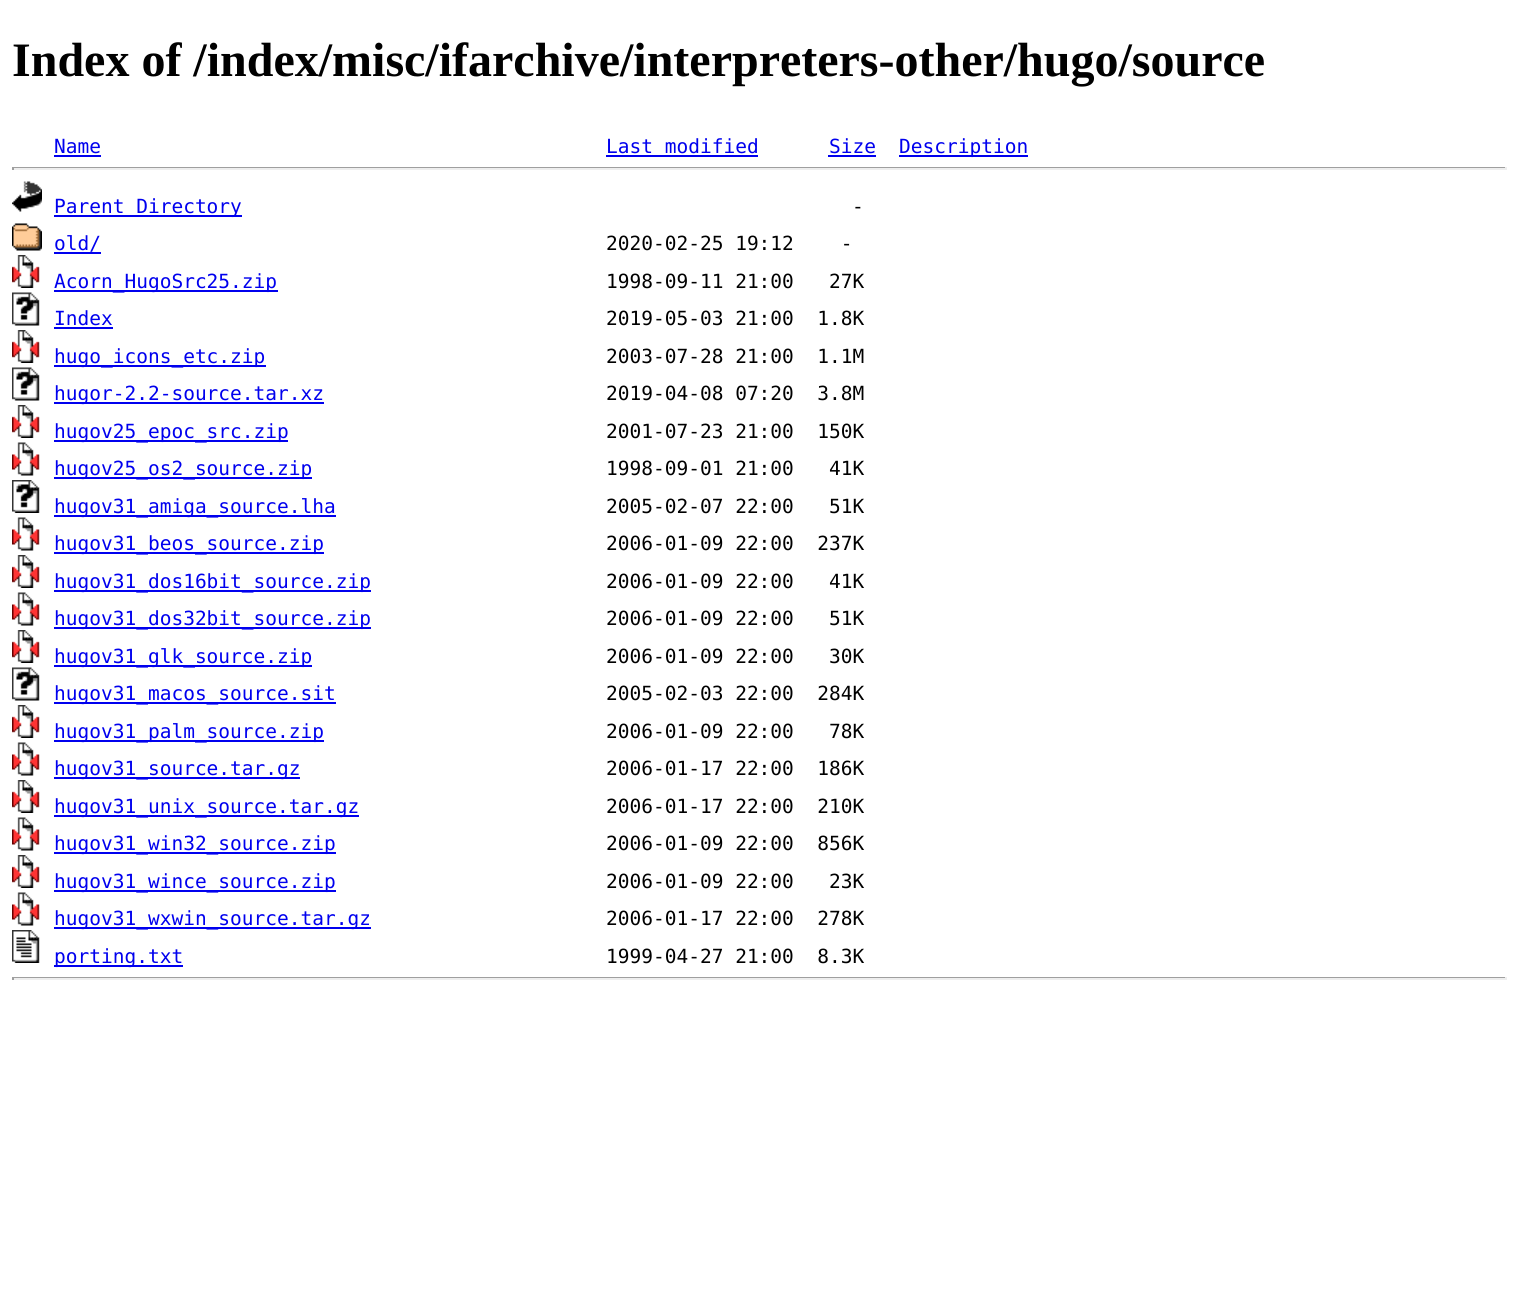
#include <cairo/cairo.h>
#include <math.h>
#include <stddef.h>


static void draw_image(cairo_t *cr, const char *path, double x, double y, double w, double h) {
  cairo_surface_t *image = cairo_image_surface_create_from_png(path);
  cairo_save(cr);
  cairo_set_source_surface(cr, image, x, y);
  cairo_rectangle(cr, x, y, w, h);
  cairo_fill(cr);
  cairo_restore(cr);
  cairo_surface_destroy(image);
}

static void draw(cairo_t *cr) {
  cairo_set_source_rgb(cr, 1, 1, 1);
  cairo_paint(cr);
  cairo_set_source_rgb(cr, 0, 0, 238 / 255.0);
  cairo_rectangle(cr, 54, 155, 47, 2);
  cairo_fill(cr);
  cairo_rectangle(cr, 606, 155, 152, 2);
  cairo_fill(cr);
  cairo_rectangle(cr, 828, 155, 48, 2);
  cairo_fill(cr);
  cairo_rectangle(cr, 899, 155, 129, 2);
  cairo_fill(cr);
  cairo_set_source_rgb(cr, 159 / 255.0, 159 / 255.0, 159 / 255.0);
  cairo_rectangle(cr, 12, 167, 1494, 1);
  cairo_fill(cr);
  cairo_set_source_rgb(cr, 238 / 255.0, 238 / 255.0, 238 / 255.0);
  cairo_rectangle(cr, 1505, 167, 2, 3);
  cairo_fill(cr);
  cairo_rectangle(cr, 12, 168, 1494, 2);
  cairo_fill(cr);
  cairo_set_source_rgb(cr, 159 / 255.0, 159 / 255.0, 159 / 255.0);
  cairo_rectangle(cr, 12, 167, 2, 3);
  cairo_fill(cr);
  draw_image(cr, "images/1.png", 12, 181, 30, 31);
  cairo_set_source_rgb(cr, 0, 0, 238 / 255.0);
  cairo_rectangle(cr, 54, 215, 188, 2);
  cairo_fill(cr);
  draw_image(cr, "images/2.png", 12, 223, 30, 28);
  cairo_rectangle(cr, 54, 252, 47, 2);
  cairo_fill(cr);
  draw_image(cr, "images/3.png", 12, 255, 28, 33);
  cairo_rectangle(cr, 54, 290, 224, 2);
  cairo_fill(cr);
  draw_image(cr, "images/4.png", 12, 292, 28, 34);
  cairo_rectangle(cr, 54, 327, 59, 2);
  cairo_fill(cr);
  draw_image(cr, "images/3.png", 12, 330, 28, 33);
  cairo_rectangle(cr, 54, 365, 212, 2);
  cairo_fill(cr);
  draw_image(cr, "images/4.png", 12, 367, 28, 34);
  cairo_rectangle(cr, 54, 402, 270, 2);
  cairo_fill(cr);
  draw_image(cr, "images/3.png", 12, 405, 28, 33);
  cairo_rectangle(cr, 54, 440, 234, 2);
  cairo_fill(cr);
  draw_image(cr, "images/5.png", 12, 442, 28, 34);
  cairo_rectangle(cr, 54, 477, 258, 2);
  cairo_fill(cr);
  draw_image(cr, "images/6.png", 12, 480, 28, 33);
  cairo_rectangle(cr, 54, 515, 282, 2);
  cairo_fill(cr);
  draw_image(cr, "images/5.png", 12, 517, 28, 34);
  cairo_rectangle(cr, 54, 552, 270, 2);
  cairo_fill(cr);
  draw_image(cr, "images/3.png", 12, 555, 28, 33);
  cairo_rectangle(cr, 54, 590, 317, 2);
  cairo_fill(cr);
  draw_image(cr, "images/5.png", 12, 592, 28, 34);
  cairo_rectangle(cr, 54, 627, 317, 2);
  cairo_fill(cr);
  draw_image(cr, "images/3.png", 12, 630, 28, 33);
  cairo_rectangle(cr, 54, 665, 258, 2);
  cairo_fill(cr);
  draw_image(cr, "images/4.png", 12, 667, 28, 34);
  cairo_rectangle(cr, 54, 702, 282, 2);
  cairo_fill(cr);
  draw_image(cr, "images/3.png", 12, 705, 28, 33);
  cairo_rectangle(cr, 54, 740, 270, 2);
  cairo_fill(cr);
  draw_image(cr, "images/5.png", 12, 742, 28, 34);
  cairo_rectangle(cr, 54, 777, 246, 2);
  cairo_fill(cr);
  draw_image(cr, "images/3.png", 12, 780, 28, 33);
  cairo_rectangle(cr, 54, 815, 305, 2);
  cairo_fill(cr);
  draw_image(cr, "images/5.png", 12, 817, 28, 34);
  cairo_rectangle(cr, 54, 852, 282, 2);
  cairo_fill(cr);
  draw_image(cr, "images/3.png", 12, 855, 28, 33);
  cairo_rectangle(cr, 54, 890, 282, 2);
  cairo_fill(cr);
  draw_image(cr, "images/5.png", 12, 892, 28, 34);
  cairo_rectangle(cr, 54, 927, 317, 2);
  cairo_fill(cr);
  draw_image(cr, "images/7.png", 12, 930, 28, 33);
  cairo_rectangle(cr, 54, 965, 129, 2);
  cairo_fill(cr);
  cairo_set_source_rgb(cr, 159 / 255.0, 159 / 255.0, 159 / 255.0);
  cairo_rectangle(cr, 12, 977, 1494, 1);
  cairo_fill(cr);
  cairo_set_source_rgb(cr, 238 / 255.0, 238 / 255.0, 238 / 255.0);
  cairo_rectangle(cr, 1505, 977, 2, 3);
  cairo_fill(cr);
  cairo_rectangle(cr, 12, 978, 1494, 2);
  cairo_fill(cr);
  cairo_set_source_rgb(cr, 159 / 255.0, 159 / 255.0, 159 / 255.0);
  cairo_rectangle(cr, 12, 977, 2, 3);
  cairo_fill(cr);
  cairo_select_font_face(cr, "Liberation Serif", CAIRO_FONT_SLANT_NORMAL, CAIRO_FONT_WEIGHT_BOLD);
  cairo_set_font_size(cr, 48);
  cairo_set_source_rgb(cr, 0, 0, 0);
  cairo_move_to(cr, 12, 76);
  cairo_show_text(cr, "Index of /index/misc/ifarchive/interpreters-other/hugo/source");
  cairo_select_font_face(cr, "DejaVu Sans Mono", CAIRO_FONT_SLANT_NORMAL, CAIRO_FONT_WEIGHT_NORMAL);
  cairo_set_font_size(cr, 19.5);
  cairo_set_source_rgb(cr, 0, 0, 238 / 255.0);
  cairo_move_to(cr, 54, 153);
  cairo_show_text(cr, "Name");
  cairo_move_to(cr, 606, 153);
  cairo_show_text(cr, "Last modified");
  cairo_move_to(cr, 829, 153);
  cairo_show_text(cr, "Size");
  cairo_move_to(cr, 899, 153);
  cairo_show_text(cr, "Description");
  cairo_move_to(cr, 54, 213);
  cairo_show_text(cr, "Parent Directory");
  cairo_set_source_rgb(cr, 0, 0, 0);
  cairo_move_to(cr, 852, 213);
  cairo_show_text(cr, "-");
  cairo_set_source_rgb(cr, 0, 0, 238 / 255.0);
  cairo_move_to(cr, 54, 250);
  cairo_show_text(cr, "old/");
  cairo_set_source_rgb(cr, 0, 0, 0);
  cairo_move_to(cr, 606, 250);
  cairo_show_text(cr, "2020-02-25 19:12    -");
  cairo_set_source_rgb(cr, 0, 0, 238 / 255.0);
  cairo_move_to(cr, 54, 288);
  cairo_show_text(cr, "Acorn_HugoSrc25.zip");
  cairo_set_source_rgb(cr, 0, 0, 0);
  cairo_move_to(cr, 606, 288);
  cairo_show_text(cr, "1998-09-11 21:00   27K");
  cairo_set_source_rgb(cr, 0, 0, 238 / 255.0);
  cairo_move_to(cr, 54, 325);
  cairo_show_text(cr, "Index");
  cairo_set_source_rgb(cr, 0, 0, 0);
  cairo_move_to(cr, 606, 325);
  cairo_show_text(cr, "2019-05-03 21:00  1.8K");
  cairo_set_source_rgb(cr, 0, 0, 238 / 255.0);
  cairo_move_to(cr, 54, 363);
  cairo_show_text(cr, "hugo_icons_etc.zip");
  cairo_set_source_rgb(cr, 0, 0, 0);
  cairo_move_to(cr, 606, 363);
  cairo_show_text(cr, "2003-07-28 21:00  1.1M");
  cairo_set_source_rgb(cr, 0, 0, 238 / 255.0);
  cairo_move_to(cr, 54, 400);
  cairo_show_text(cr, "hugor-2.2-source.tar.xz");
  cairo_set_source_rgb(cr, 0, 0, 0);
  cairo_move_to(cr, 606, 400);
  cairo_show_text(cr, "2019-04-08 07:20  3.8M");
  cairo_set_source_rgb(cr, 0, 0, 238 / 255.0);
  cairo_move_to(cr, 54, 438);
  cairo_show_text(cr, "hugov25_epoc_src.zip");
  cairo_set_source_rgb(cr, 0, 0, 0);
  cairo_move_to(cr, 606, 438);
  cairo_show_text(cr, "2001-07-23 21:00  150K");
  cairo_set_source_rgb(cr, 0, 0, 238 / 255.0);
  cairo_move_to(cr, 54, 475);
  cairo_show_text(cr, "hugov25_os2_source.zip");
  cairo_set_source_rgb(cr, 0, 0, 0);
  cairo_move_to(cr, 606, 475);
  cairo_show_text(cr, "1998-09-01 21:00   41K");
  cairo_set_source_rgb(cr, 0, 0, 238 / 255.0);
  cairo_move_to(cr, 54, 513);
  cairo_show_text(cr, "hugov31_amiga_source.lha");
  cairo_set_source_rgb(cr, 0, 0, 0);
  cairo_move_to(cr, 606, 513);
  cairo_show_text(cr, "2005-02-07 22:00   51K");
  cairo_set_source_rgb(cr, 0, 0, 238 / 255.0);
  cairo_move_to(cr, 54, 550);
  cairo_show_text(cr, "hugov31_beos_source.zip");
  cairo_set_source_rgb(cr, 0, 0, 0);
  cairo_move_to(cr, 606, 550);
  cairo_show_text(cr, "2006-01-09 22:00  237K");
  cairo_set_source_rgb(cr, 0, 0, 238 / 255.0);
  cairo_move_to(cr, 54, 588);
  cairo_show_text(cr, "hugov31_dos16bit_source.zip");
  cairo_set_source_rgb(cr, 0, 0, 0);
  cairo_move_to(cr, 606, 588);
  cairo_show_text(cr, "2006-01-09 22:00   41K");
  cairo_set_source_rgb(cr, 0, 0, 238 / 255.0);
  cairo_move_to(cr, 54, 625);
  cairo_show_text(cr, "hugov31_dos32bit_source.zip");
  cairo_set_source_rgb(cr, 0, 0, 0);
  cairo_move_to(cr, 606, 625);
  cairo_show_text(cr, "2006-01-09 22:00   51K");
  cairo_set_source_rgb(cr, 0, 0, 238 / 255.0);
  cairo_move_to(cr, 54, 663);
  cairo_show_text(cr, "hugov31_glk_source.zip");
  cairo_set_source_rgb(cr, 0, 0, 0);
  cairo_move_to(cr, 606, 663);
  cairo_show_text(cr, "2006-01-09 22:00   30K");
  cairo_set_source_rgb(cr, 0, 0, 238 / 255.0);
  cairo_move_to(cr, 54, 700);
  cairo_show_text(cr, "hugov31_macos_source.sit");
  cairo_set_source_rgb(cr, 0, 0, 0);
  cairo_move_to(cr, 606, 700);
  cairo_show_text(cr, "2005-02-03 22:00  284K");
  cairo_set_source_rgb(cr, 0, 0, 238 / 255.0);
  cairo_move_to(cr, 54, 738);
  cairo_show_text(cr, "hugov31_palm_source.zip");
  cairo_set_source_rgb(cr, 0, 0, 0);
  cairo_move_to(cr, 606, 738);
  cairo_show_text(cr, "2006-01-09 22:00   78K");
  cairo_set_source_rgb(cr, 0, 0, 238 / 255.0);
  cairo_move_to(cr, 54, 775);
  cairo_show_text(cr, "hugov31_source.tar.gz");
  cairo_set_source_rgb(cr, 0, 0, 0);
  cairo_move_to(cr, 606, 775);
  cairo_show_text(cr, "2006-01-17 22:00  186K");
  cairo_set_source_rgb(cr, 0, 0, 238 / 255.0);
  cairo_move_to(cr, 54, 813);
  cairo_show_text(cr, "hugov31_unix_source.tar.gz");
  cairo_set_source_rgb(cr, 0, 0, 0);
  cairo_move_to(cr, 606, 813);
  cairo_show_text(cr, "2006-01-17 22:00  210K");
  cairo_set_source_rgb(cr, 0, 0, 238 / 255.0);
  cairo_move_to(cr, 54, 850);
  cairo_show_text(cr, "hugov31_win32_source.zip");
  cairo_set_source_rgb(cr, 0, 0, 0);
  cairo_move_to(cr, 606, 850);
  cairo_show_text(cr, "2006-01-09 22:00  856K");
  cairo_set_source_rgb(cr, 0, 0, 238 / 255.0);
  cairo_move_to(cr, 54, 888);
  cairo_show_text(cr, "hugov31_wince_source.zip");
  cairo_set_source_rgb(cr, 0, 0, 0);
  cairo_move_to(cr, 606, 888);
  cairo_show_text(cr, "2006-01-09 22:00   23K");
  cairo_set_source_rgb(cr, 0, 0, 238 / 255.0);
  cairo_move_to(cr, 54, 925);
  cairo_show_text(cr, "hugov31_wxwin_source.tar.gz");
  cairo_set_source_rgb(cr, 0, 0, 0);
  cairo_move_to(cr, 606, 925);
  cairo_show_text(cr, "2006-01-17 22:00  278K");
  cairo_set_source_rgb(cr, 0, 0, 238 / 255.0);
  cairo_move_to(cr, 54, 963);
  cairo_show_text(cr, "porting.txt");
  cairo_set_source_rgb(cr, 0, 0, 0);
  cairo_move_to(cr, 606, 963);
  cairo_show_text(cr, "1999-04-27 21:00  8.3K");
}

int main(void) {
  cairo_surface_t *surface = cairo_image_surface_create(CAIRO_FORMAT_RGB24, 1518, 1313);
  cairo_t *cr = cairo_create(surface);
  cairo_font_options_t *options = cairo_font_options_create();
  cairo_font_options_set_hint_metrics(options, CAIRO_HINT_METRICS_OFF);
  cairo_font_options_set_hint_style(options, CAIRO_HINT_STYLE_NONE);
  cairo_set_font_options(cr, options);
  cairo_set_miter_limit(cr, 4);
  draw(cr);
  cairo_surface_write_to_png(surface, "out.png");
  cairo_font_options_destroy(options);
  cairo_destroy(cr);
  cairo_surface_destroy(surface);
  return 0;
}
